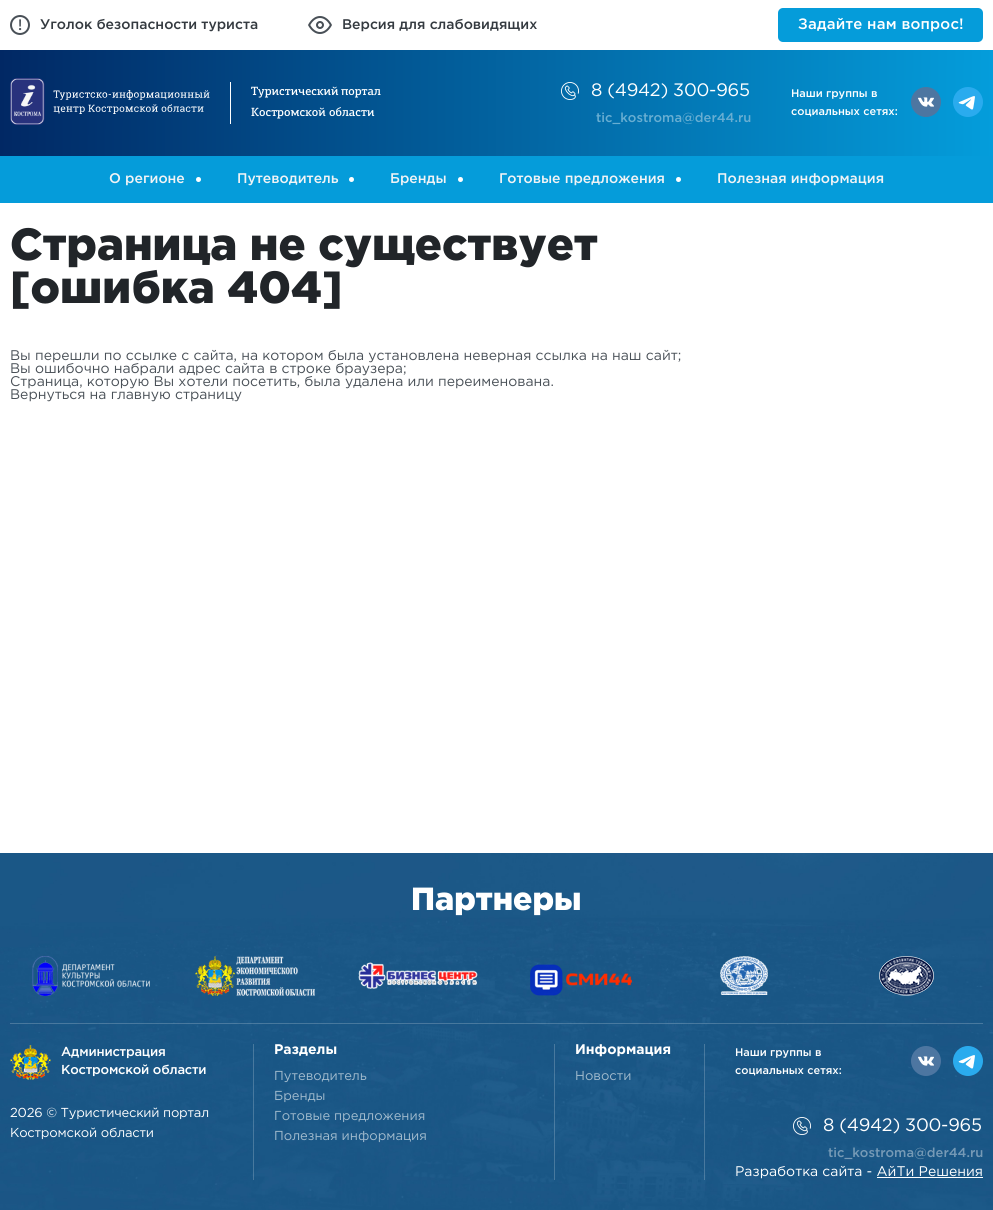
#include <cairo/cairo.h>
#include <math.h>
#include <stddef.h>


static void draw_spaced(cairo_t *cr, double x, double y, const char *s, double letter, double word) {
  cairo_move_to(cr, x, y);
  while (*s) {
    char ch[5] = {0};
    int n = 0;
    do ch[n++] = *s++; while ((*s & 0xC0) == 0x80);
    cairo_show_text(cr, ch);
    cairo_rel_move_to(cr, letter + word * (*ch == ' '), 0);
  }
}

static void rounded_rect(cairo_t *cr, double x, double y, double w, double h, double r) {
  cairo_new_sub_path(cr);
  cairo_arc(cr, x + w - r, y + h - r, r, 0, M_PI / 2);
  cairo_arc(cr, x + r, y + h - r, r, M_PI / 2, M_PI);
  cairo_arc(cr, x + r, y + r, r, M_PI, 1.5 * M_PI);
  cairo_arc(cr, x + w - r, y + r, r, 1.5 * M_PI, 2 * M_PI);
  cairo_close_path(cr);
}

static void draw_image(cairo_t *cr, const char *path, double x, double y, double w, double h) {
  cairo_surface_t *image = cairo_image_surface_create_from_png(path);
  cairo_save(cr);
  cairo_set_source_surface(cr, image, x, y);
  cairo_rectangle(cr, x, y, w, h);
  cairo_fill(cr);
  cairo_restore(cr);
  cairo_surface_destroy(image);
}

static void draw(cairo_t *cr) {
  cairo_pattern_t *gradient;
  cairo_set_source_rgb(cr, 1, 1, 1);
  cairo_paint(cr);
  gradient = cairo_pattern_create_linear(-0.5, 99, 993, 104);
  cairo_pattern_add_color_stop_rgba(gradient, 0, 1 / 255.0, 40 / 255.0, 100 / 255.0, 1);
  cairo_pattern_add_color_stop_rgba(gradient, 1, 4 / 255.0, 157 / 255.0, 219 / 255.0, 1);
  cairo_set_source(cr, gradient);
  cairo_pattern_destroy(gradient);
  cairo_rectangle(cr, 0, 50, 993, 106);
  cairo_fill(cr);
  draw_image(cr, "images/1.png", 10, 15, 20, 20);
  draw_image(cr, "images/2.png", 308, 16, 24, 18);
  cairo_set_source_rgb(cr, 5 / 255.0, 156 / 255.0, 218 / 255.0);
  rounded_rect(cr, 778, 8, 205, 34, 5);
  cairo_fill(cr);
  draw_image(cr, "images/3.png", 10, 78, 200, 47);
  cairo_set_source_rgb(cr, 1, 1, 1);
  cairo_rectangle(cr, 230, 82, 1, 42);
  cairo_fill(cr);
  draw_image(cr, "images/4.png", 561, 82, 18, 18);
  draw_image(cr, "images/5.png", 911, 87, 30, 30);
  draw_image(cr, "images/6.png", 953, 87, 30, 30);
  cairo_set_source_rgb(cr, 5 / 255.0, 156 / 255.0, 218 / 255.0);
  cairo_rectangle(cr, 0, 156, 993, 47);
  cairo_fill(cr);
  cairo_set_source_rgb(cr, 1, 1, 1);
  cairo_arc(cr, 198.5, 179.5, 2.5, 0, 2 * M_PI);
  cairo_fill(cr);
  cairo_arc(cr, 351.5, 179.5, 2.5, 0, 2 * M_PI);
  cairo_fill(cr);
  cairo_arc(cr, 460.5, 179.5, 2.5, 0, 2 * M_PI);
  cairo_fill(cr);
  cairo_arc(cr, 678.5, 179.5, 2.5, 0, 2 * M_PI);
  cairo_fill(cr);
  draw_image(cr, "images/7.png", 0, 853, 993, 357);
  draw_image(cr, "images/8.png", 32, 956, 118, 40);
  draw_image(cr, "images/9.png", 195, 956, 120, 40);
  draw_image(cr, "images/10.png", 358, 962, 120, 27);
  draw_image(cr, "images/11.png", 530, 964, 102, 32);
  draw_image(cr, "images/12.png", 720, 956, 48, 39);
  draw_image(cr, "images/13.png", 879, 956, 55, 40);
  cairo_set_source_rgba(cr, 1, 1, 1, 0.2);
  cairo_rectangle(cr, 10, 1023, 973, 1);
  cairo_fill(cr);
  draw_image(cr, "images/14.png", 10, 1045, 41, 35);
  cairo_rectangle(cr, 253, 1044, 1, 136);
  cairo_fill(cr);
  cairo_rectangle(cr, 554, 1044, 1, 136);
  cairo_fill(cr);
  cairo_rectangle(cr, 704, 1044, 1, 136);
  cairo_fill(cr);
  draw_image(cr, "images/15.png", 911, 1046, 30, 30);
  draw_image(cr, "images/16.png", 953, 1046, 30, 30);
  draw_image(cr, "images/17.png", 793, 1117, 18, 18);
  cairo_set_source_rgb(cr, 1, 1, 1);
  cairo_rectangle(cr, 877, 1177, 106, 1);
  cairo_fill(cr);
  cairo_select_font_face(cr, "Gotham Medium", CAIRO_FONT_SLANT_NORMAL, CAIRO_FONT_WEIGHT_NORMAL);
  cairo_set_font_size(cr, 14);
  cairo_set_source_rgb(cr, 52 / 255.0, 58 / 255.0, 64 / 255.0);
  cairo_move_to(cr, 40, 29);
  cairo_show_text(cr, "Уголок безопасности туриста");
  cairo_move_to(cr, 342, 29);
  cairo_show_text(cr, "Версия для слабовидящих");
  cairo_set_font_size(cr, 15);
  cairo_set_source_rgb(cr, 1, 1, 1);
  draw_spaced(cr, 798, 29, "Задайте нам вопрос!", 0.2, 0);
  cairo_select_font_face(cr, "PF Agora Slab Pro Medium", CAIRO_FONT_SLANT_NORMAL, CAIRO_FONT_WEIGHT_NORMAL);
  cairo_set_font_size(cr, 12);
  cairo_move_to(cr, 251, 95);
  cairo_show_text(cr, "Туристический");
  cairo_move_to(cr, 341, 95);
  cairo_show_text(cr, "портал");
  cairo_move_to(cr, 251, 116);
  cairo_show_text(cr, "Костромской");
  cairo_move_to(cr, 329, 116);
  cairo_show_text(cr, "области");
  cairo_select_font_face(cr, "Gotham", CAIRO_FONT_SLANT_NORMAL, CAIRO_FONT_WEIGHT_NORMAL);
  cairo_set_font_size(cr, 18);
  draw_spaced(cr, 591, 96, "8 (4942) 300-965", -0.25, 0);
  cairo_select_font_face(cr, "Gotham Medium", CAIRO_FONT_SLANT_NORMAL, CAIRO_FONT_WEIGHT_NORMAL);
  cairo_set_font_size(cr, 13);
  cairo_set_source_rgb(cr, 104 / 255.0, 174 / 255.0, 210 / 255.0);
  cairo_move_to(cr, 596, 122);
  cairo_show_text(cr, "tic_kostroma@der44.ru");
  cairo_set_font_size(cr, 11);
  cairo_set_source_rgb(cr, 1, 1, 1);
  cairo_move_to(cr, 791, 97);
  cairo_show_text(cr, "Наши группы в");
  cairo_move_to(cr, 791, 115);
  cairo_show_text(cr, "социальных сетях:");
  cairo_set_font_size(cr, 14);
  cairo_set_source_rgb(cr, 241 / 255.0, 243 / 255.0, 245 / 255.0);
  cairo_move_to(cr, 109, 183);
  cairo_show_text(cr, "О регионе");
  cairo_move_to(cr, 237, 183);
  cairo_show_text(cr, "Путеводитель");
  cairo_move_to(cr, 390, 183);
  cairo_show_text(cr, "Бренды");
  cairo_move_to(cr, 499, 183);
  cairo_show_text(cr, "Готовые предложения");
  cairo_move_to(cr, 717, 183);
  cairo_show_text(cr, "Полезная информация");
  cairo_select_font_face(cr, "Gotham Black", CAIRO_FONT_SLANT_NORMAL, CAIRO_FONT_WEIGHT_NORMAL);
  cairo_set_font_size(cr, 45);
  cairo_set_source_rgb(cr, 33 / 255.0, 37 / 255.0, 41 / 255.0);
  cairo_move_to(cr, 10, 260);
  cairo_show_text(cr, "Страница не существует");
  cairo_move_to(cr, 10, 303);
  cairo_show_text(cr, "[ошибка 404]");
  cairo_select_font_face(cr, "Gotham", CAIRO_FONT_SLANT_NORMAL, CAIRO_FONT_WEIGHT_NORMAL);
  cairo_set_font_size(cr, 14);
  cairo_set_source_rgb(cr, 73 / 255.0, 80 / 255.0, 87 / 255.0);
  cairo_move_to(cr, 10, 360);
  cairo_show_text(cr, "Вы перешли по ссылке с сайта, на котором была установлена неверная ссылка на наш сайт;");
  cairo_move_to(cr, 10, 373);
  cairo_show_text(cr, "Вы ошибочно набрали адрес сайта в строке браузера;");
  cairo_move_to(cr, 10, 386);
  cairo_show_text(cr, "Страница, которую Вы хотели посетить, была удалена или переименована.");
  cairo_move_to(cr, 10, 399);
  cairo_show_text(cr, "Вернуться на главную страницу");
  cairo_select_font_face(cr, "Gotham Black", CAIRO_FONT_SLANT_NORMAL, CAIRO_FONT_WEIGHT_NORMAL);
  cairo_set_font_size(cr, 32);
  cairo_set_source_rgb(cr, 1, 1, 1);
  cairo_move_to(cr, 411, 910);
  cairo_show_text(cr, "Партнеры");
  cairo_select_font_face(cr, "Gotham Medium", CAIRO_FONT_SLANT_NORMAL, CAIRO_FONT_WEIGHT_NORMAL);
  cairo_set_font_size(cr, 13);
  draw_spaced(cr, 61, 1056, "Администрация", -0.2, 0);
  draw_spaced(cr, 61, 1074, "Костромской области", -0.2, 0);
  cairo_select_font_face(cr, "Gotham", CAIRO_FONT_SLANT_NORMAL, CAIRO_FONT_WEIGHT_NORMAL);
  draw_spaced(cr, 10, 1117, "2026 © Туристический портал", -0.2, 0);
  draw_spaced(cr, 10, 1137, "Костромской области", -0.2, 0);
  cairo_select_font_face(cr, "Gotham", CAIRO_FONT_SLANT_NORMAL, CAIRO_FONT_WEIGHT_BOLD);
  cairo_set_font_size(cr, 14);
  cairo_move_to(cr, 274, 1054);
  cairo_show_text(cr, "Разделы");
  cairo_select_font_face(cr, "Gotham", CAIRO_FONT_SLANT_NORMAL, CAIRO_FONT_WEIGHT_NORMAL);
  cairo_set_font_size(cr, 13);
  cairo_set_source_rgb(cr, 163 / 255.0, 188 / 255.0, 206 / 255.0);
  cairo_move_to(cr, 274, 1080);
  cairo_show_text(cr, "Путеводитель");
  cairo_move_to(cr, 274, 1100);
  cairo_show_text(cr, "Бренды");
  cairo_move_to(cr, 274, 1120);
  cairo_show_text(cr, "Готовые предложения");
  cairo_move_to(cr, 274, 1140);
  cairo_show_text(cr, "Полезная информация");
  cairo_select_font_face(cr, "Gotham", CAIRO_FONT_SLANT_NORMAL, CAIRO_FONT_WEIGHT_BOLD);
  cairo_set_font_size(cr, 14);
  cairo_set_source_rgb(cr, 1, 1, 1);
  cairo_move_to(cr, 575, 1054);
  cairo_show_text(cr, "Информация");
  cairo_select_font_face(cr, "Gotham", CAIRO_FONT_SLANT_NORMAL, CAIRO_FONT_WEIGHT_NORMAL);
  cairo_set_font_size(cr, 13);
  cairo_set_source_rgb(cr, 163 / 255.0, 188 / 255.0, 206 / 255.0);
  cairo_move_to(cr, 575, 1080);
  cairo_show_text(cr, "Новости");
  cairo_select_font_face(cr, "Gotham Medium", CAIRO_FONT_SLANT_NORMAL, CAIRO_FONT_WEIGHT_NORMAL);
  cairo_set_font_size(cr, 11);
  cairo_set_source_rgb(cr, 1, 1, 1);
  cairo_move_to(cr, 735, 1056);
  cairo_show_text(cr, "Наши группы в");
  cairo_move_to(cr, 735, 1074);
  cairo_show_text(cr, "социальных сетях:");
  cairo_select_font_face(cr, "Gotham", CAIRO_FONT_SLANT_NORMAL, CAIRO_FONT_WEIGHT_NORMAL);
  cairo_set_font_size(cr, 18);
  draw_spaced(cr, 823, 1131, "8 (4942) 300-965", -0.25, 0);
  cairo_select_font_face(cr, "Gotham Medium", CAIRO_FONT_SLANT_NORMAL, CAIRO_FONT_WEIGHT_NORMAL);
  cairo_set_font_size(cr, 13);
  cairo_set_source_rgb(cr, 118 / 255.0, 154 / 255.0, 182 / 255.0);
  cairo_move_to(cr, 828, 1157);
  cairo_show_text(cr, "tic_kostroma@der44.ru");
  cairo_select_font_face(cr, "Gotham", CAIRO_FONT_SLANT_NORMAL, CAIRO_FONT_WEIGHT_NORMAL);
  cairo_set_font_size(cr, 14);
  cairo_set_source_rgb(cr, 1, 1, 1);
  cairo_move_to(cr, 735, 1176);
  cairo_show_text(cr, "Разработка сайта - АйТи Решения");
}

int main(void) {
  cairo_surface_t *surface = cairo_image_surface_create(CAIRO_FORMAT_RGB24, 993, 1210);
  cairo_t *cr = cairo_create(surface);
  cairo_font_options_t *options = cairo_font_options_create();
  cairo_font_options_set_hint_metrics(options, CAIRO_HINT_METRICS_OFF);
  cairo_font_options_set_hint_style(options, CAIRO_HINT_STYLE_NONE);
  cairo_set_font_options(cr, options);
  cairo_set_miter_limit(cr, 4);
  draw(cr);
  cairo_surface_write_to_png(surface, "out.png");
  cairo_font_options_destroy(options);
  cairo_destroy(cr);
  cairo_surface_destroy(surface);
  return 0;
}
